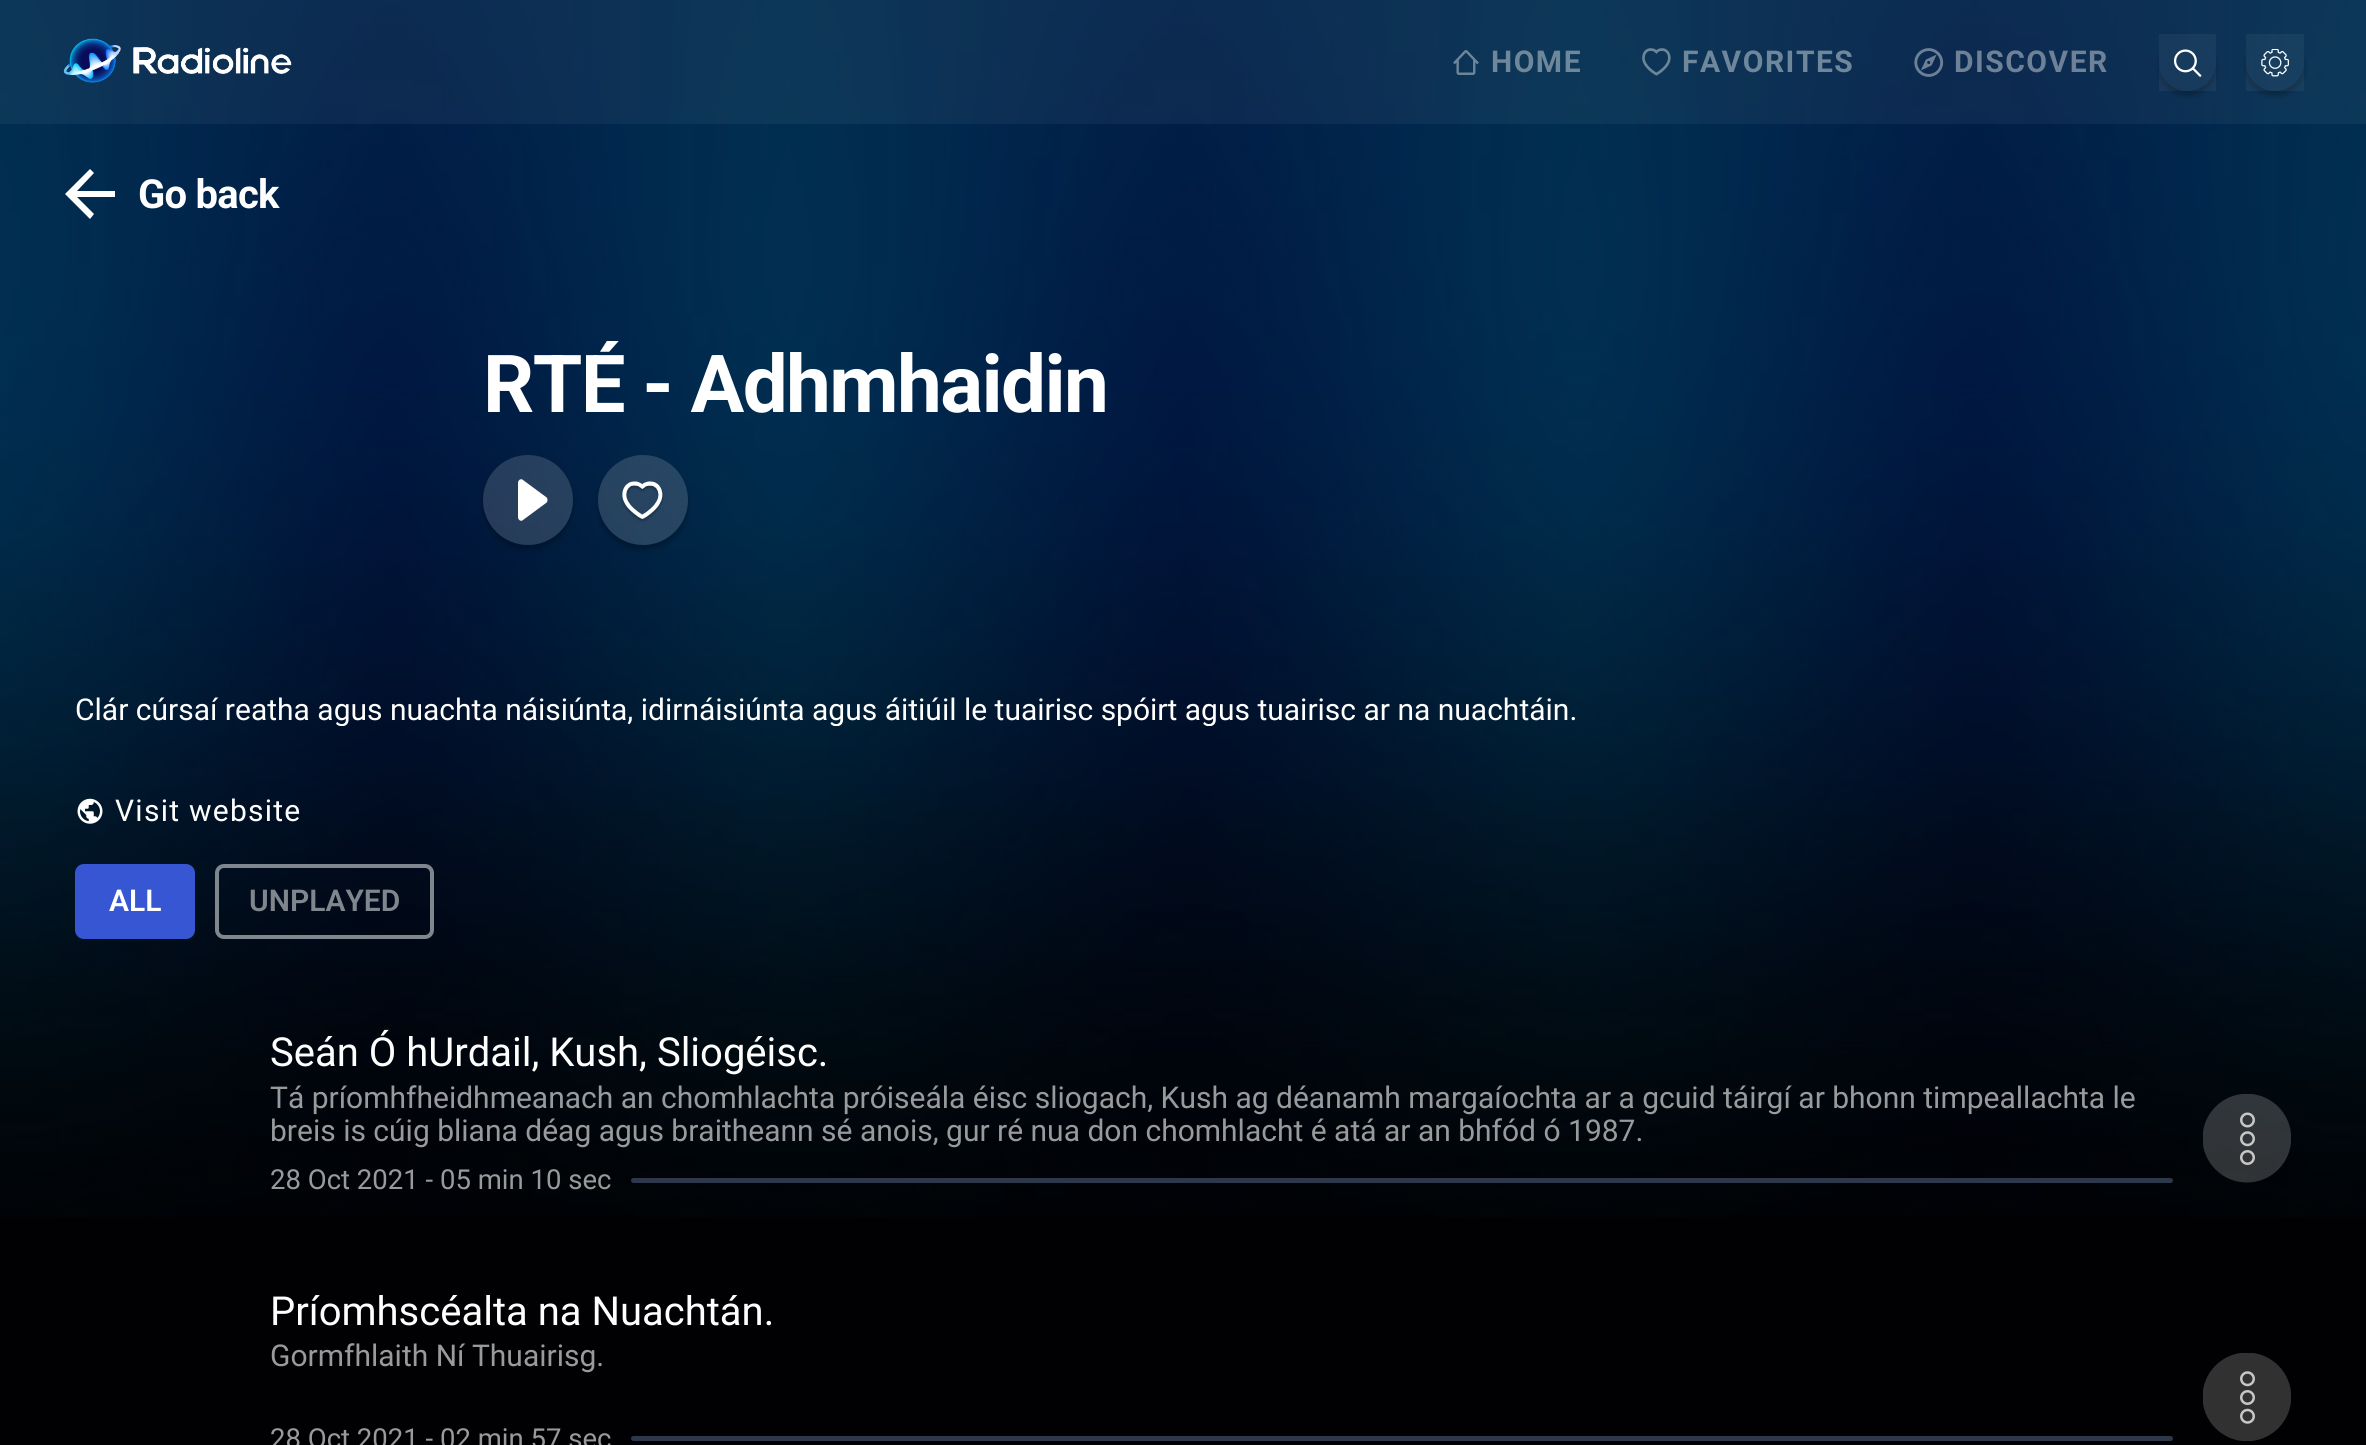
#include <cairo/cairo.h>
#include <math.h>
#include <stddef.h>


static void draw_spaced(cairo_t *cr, double x, double y, const char *s, double letter, double word) {
  cairo_move_to(cr, x, y);
  while (*s) {
    char ch[5] = {0};
    int n = 0;
    do ch[n++] = *s++; while ((*s & 0xC0) == 0x80);
    cairo_show_text(cr, ch);
    cairo_rel_move_to(cr, letter + word * (*ch == ' '), 0);
  }
}

static void rounded_rect(cairo_t *cr, double x, double y, double w, double h, double r) {
  cairo_new_sub_path(cr);
  cairo_arc(cr, x + w - r, y + h - r, r, 0, M_PI / 2);
  cairo_arc(cr, x + r, y + h - r, r, M_PI / 2, M_PI);
  cairo_arc(cr, x + r, y + r, r, M_PI, 1.5 * M_PI);
  cairo_arc(cr, x + w - r, y + r, r, 1.5 * M_PI, 2 * M_PI);
  cairo_close_path(cr);
}

static void draw_shadow(cairo_t *cr, double x, double y, double w, double h, double r, double blur, double alpha) {
  cairo_push_group_with_content(cr, CAIRO_CONTENT_ALPHA);
  cairo_set_operator(cr, CAIRO_OPERATOR_SOURCE);
  for (int i = 15; i >= -15 && fmin(w, h) + blur * i / 3 > 0; i -= 2) {
    double e = blur * i / 6;
    cairo_set_source_rgba(cr, 0, 0, 0, alpha * erfc((i - 1) / 8.5) / 2);
    rounded_rect(cr, x - e, y - e, w + 2 * e, h + 2 * e, fmax(0, fmin(r + e + blur * .6, fmin(w, h) / 2 + e)));
    cairo_fill(cr);
  }
  cairo_pattern_t *soft = cairo_pop_group(cr);
  cairo_mask(cr, soft);
  cairo_pattern_destroy(soft);
}

static void draw_image(cairo_t *cr, const char *path, double x, double y, double w, double h) {
  cairo_surface_t *image = cairo_image_surface_create_from_png(path);
  cairo_save(cr);
  cairo_set_source_surface(cr, image, x, y);
  cairo_rectangle(cr, x, y, w, h);
  cairo_fill(cr);
  cairo_restore(cr);
  cairo_surface_destroy(image);
}

static void draw(cairo_t *cr) {
  cairo_set_source_rgb(cr, 1 / 255.0, 1 / 255.0, 3 / 255.0);
  cairo_paint(cr);
  draw_image(cr, "images/1.png", 0, 0, 2366, 1217);
  cairo_set_source_rgba(cr, 1, 1, 1, 0.05);
  cairo_rectangle(cr, 0, 0, 2366, 124);
  cairo_fill(cr);
  draw_image(cr, "images/2.png", 63, 38, 229, 45);
  draw_image(cr, "images/3.png", 1453, 50, 26, 25);
  draw_image(cr, "images/4.png", 1642, 48, 29, 28);
  draw_image(cr, "images/5.png", 1914, 48, 30, 29);
  cairo_save(cr);
  cairo_set_fill_rule(cr, CAIRO_FILL_RULE_EVEN_ODD);
  cairo_new_path(cr);
  cairo_move_to(cr, 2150, 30);
  cairo_line_to(cr, 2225, 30);
  cairo_line_to(cr, 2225, 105);
  cairo_line_to(cr, 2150, 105);
  cairo_close_path(cr);
  cairo_move_to(cr, 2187.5, 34);
  cairo_curve_to(cr, 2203, 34, 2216, 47, 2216, 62.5);
  cairo_curve_to(cr, 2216, 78, 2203, 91, 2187.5, 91);
  cairo_curve_to(cr, 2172, 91, 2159, 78, 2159, 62.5);
  cairo_curve_to(cr, 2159, 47, 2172, 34, 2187.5, 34);
  cairo_close_path(cr);
  cairo_clip(cr);
  cairo_set_source_rgb(cr, 0, 0, 0);
  draw_shadow(cr, 2159, 39, 57, 57, 28.5, 2.5, 0.25);
  cairo_restore(cr);
  cairo_rectangle(cr, 2159, 34, 57, 57);
  cairo_fill(cr);
  draw_image(cr, "images/6.png", 2174, 49, 28, 28);
  cairo_save(cr);
  cairo_set_fill_rule(cr, CAIRO_FILL_RULE_EVEN_ODD);
  cairo_new_path(cr);
  cairo_move_to(cr, 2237, 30);
  cairo_line_to(cr, 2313, 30);
  cairo_line_to(cr, 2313, 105);
  cairo_line_to(cr, 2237, 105);
  cairo_close_path(cr);
  cairo_move_to(cr, 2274.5, 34);
  cairo_line_to(cr, 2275.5, 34);
  cairo_curve_to(cr, 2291, 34, 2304, 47, 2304, 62.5);
  cairo_curve_to(cr, 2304, 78, 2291, 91, 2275.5, 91);
  cairo_line_to(cr, 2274.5, 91);
  cairo_curve_to(cr, 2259, 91, 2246, 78, 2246, 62.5);
  cairo_curve_to(cr, 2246, 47, 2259, 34, 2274.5, 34);
  cairo_close_path(cr);
  cairo_clip(cr);
  cairo_set_source_rgb(cr, 0, 0, 0);
  draw_shadow(cr, 2246, 39, 58, 57, 28.5, 2.5, 0.25);
  cairo_restore(cr);
  cairo_rectangle(cr, 2246, 34, 58, 57);
  cairo_fill(cr);
  draw_image(cr, "images/7.png", 2261, 49, 28, 28);
  cairo_set_source_rgb(cr, 1, 1, 1);
  cairo_new_path(cr);
  cairo_move_to(cr, 115, 191);
  cairo_line_to(cr, 77, 191);
  cairo_line_to(cr, 94, 173);
  cairo_line_to(cr, 90, 169);
  cairo_line_to(cr, 65, 194);
  cairo_line_to(cr, 90, 219);
  cairo_line_to(cr, 94, 214);
  cairo_line_to(cr, 77, 197);
  cairo_line_to(cr, 115, 197);
  cairo_close_path(cr);
  cairo_fill(cr);
  cairo_save(cr);
  cairo_set_fill_rule(cr, CAIRO_FILL_RULE_EVEN_ODD);
  cairo_new_path(cr);
  cairo_move_to(cr, 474, 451);
  cairo_line_to(cr, 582, 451);
  cairo_line_to(cr, 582, 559);
  cairo_line_to(cr, 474, 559);
  cairo_close_path(cr);
  cairo_move_to(cr, 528, 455);
  cairo_curve_to(cr, 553, 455, 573, 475, 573, 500);
  cairo_curve_to(cr, 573, 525, 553, 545, 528, 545);
  cairo_curve_to(cr, 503, 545, 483, 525, 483, 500);
  cairo_curve_to(cr, 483, 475, 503, 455, 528, 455);
  cairo_close_path(cr);
  cairo_clip(cr);
  cairo_set_source_rgb(cr, 0, 0, 0);
  draw_shadow(cr, 483, 460, 90, 90, 45, 2.5, 0.25);
  cairo_restore(cr);
  cairo_set_source_rgba(cr, 1, 1, 1, 0.15);
  cairo_arc(cr, 528, 500, 45, 0, 2 * M_PI);
  cairo_fill(cr);
  cairo_set_source_rgb(cr, 1, 1, 1);
  cairo_new_path(cr);
  cairo_move_to(cr, 546, 497);
  cairo_line_to(cr, 523, 480);
  cairo_curve_to(cr, 521, 478, 518, 480, 518, 483);
  cairo_line_to(cr, 518, 517);
  cairo_curve_to(cr, 518, 520, 521, 522, 523, 520);
  cairo_line_to(cr, 546, 503);
  cairo_curve_to(cr, 548, 502, 548, 498, 546, 497);
  cairo_close_path(cr);
  cairo_fill(cr);
  cairo_save(cr);
  cairo_set_fill_rule(cr, CAIRO_FILL_RULE_EVEN_ODD);
  cairo_new_path(cr);
  cairo_move_to(cr, 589, 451);
  cairo_line_to(cr, 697, 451);
  cairo_line_to(cr, 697, 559);
  cairo_line_to(cr, 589, 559);
  cairo_close_path(cr);
  cairo_move_to(cr, 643, 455);
  cairo_curve_to(cr, 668, 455, 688, 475, 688, 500);
  cairo_curve_to(cr, 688, 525, 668, 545, 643, 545);
  cairo_curve_to(cr, 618, 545, 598, 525, 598, 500);
  cairo_curve_to(cr, 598, 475, 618, 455, 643, 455);
  cairo_close_path(cr);
  cairo_clip(cr);
  cairo_set_source_rgb(cr, 0, 0, 0);
  draw_shadow(cr, 598, 460, 90, 90, 45, 2.5, 0.25);
  cairo_restore(cr);
  cairo_set_source_rgba(cr, 1, 1, 1, 0.15);
  cairo_arc(cr, 643, 500, 45, 0, 2 * M_PI);
  cairo_fill(cr);
  draw_image(cr, "images/8.png", 621, 481, 43, 41);
  draw_image(cr, "images/9.png", 77, 798, 26, 26);
  cairo_set_source_rgb(cr, 55 / 255.0, 86 / 255.0, 211 / 255.0);
  rounded_rect(cr, 77, 866, 116, 71, 7);
  cairo_fill_preserve(cr);
  cairo_set_line_width(cr, 4);
  cairo_stroke(cr);
  rounded_rect(cr, 217, 866, 215, 71, 7);
  cairo_set_source_rgb(cr, 127 / 255.0, 134 / 255.0, 142 / 255.0);
  cairo_stroke(cr);
  cairo_set_source_rgb(cr, 46 / 255.0, 56 / 255.0, 75 / 255.0);
  rounded_rect(cr, 631, 1178, 1542, 5, 2.5);
  cairo_fill(cr);
  draw_image(cr, "images/10.png", 2203, 1094, 88, 89);
  rounded_rect(cr, 631, 1436, 1542, 5, 2.5);
  cairo_fill(cr);
  draw_image(cr, "images/11.png", 2203, 1353, 88, 88);
  cairo_select_font_face(cr, "Roboto", CAIRO_FONT_SLANT_NORMAL, CAIRO_FONT_WEIGHT_BOLD);
  cairo_set_font_size(cr, 30);
  cairo_set_source_rgb(cr, 110 / 255.0, 135 / 255.0, 155 / 255.0);
  draw_spaced(cr, 1491, 72, "HOME", 1.5, 0);
  draw_spaced(cr, 1682, 72, "FAVORITES", 1.5, 0);
  cairo_set_source_rgb(cr, 110 / 255.0, 129 / 255.0, 151 / 255.0);
  draw_spaced(cr, 1954, 72, "DISCOVER", 1.5, 0);
  cairo_set_font_size(cr, 40);
  cairo_set_source_rgb(cr, 1, 1, 1);
  draw_spaced(cr, 138, 208, "Go back", -0.75, 0);
  cairo_save(cr);
  cairo_rectangle(cr, 483, 341, 623, 89);
  cairo_clip(cr);
  cairo_set_font_size(cr, 80);
  draw_spaced(cr, 483, 412, "RTÉ - Adhmhaidin", -1.6, 0);
  cairo_restore(cr);
  cairo_save(cr);
  cairo_rectangle(cr, 75, 676, 2216, 50);
  cairo_clip(cr);
  cairo_select_font_face(cr, "Roboto", CAIRO_FONT_SLANT_NORMAL, CAIRO_FONT_WEIGHT_NORMAL);
  cairo_set_font_size(cr, 30);
  cairo_move_to(cr, 75, 720);
  cairo_show_text(cr, "Clár cúrsaí reatha agus nuachta náisiúnta, idirnáisiúnta agus áitiúil le tuairisc spóirt agus tuairisc ar na nuachtáin.");
  cairo_restore(cr);
  cairo_select_font_face(cr, "Roboto", CAIRO_FONT_SLANT_NORMAL, CAIRO_FONT_WEIGHT_NORMAL);
  cairo_set_font_size(cr, 30);
  draw_spaced(cr, 115, 821, "Visit website", 1.25, 0);
  cairo_select_font_face(cr, "Roboto SemiBold", CAIRO_FONT_SLANT_NORMAL, CAIRO_FONT_WEIGHT_NORMAL);
  cairo_move_to(cr, 109, 911);
  cairo_show_text(cr, "ALL");
  cairo_set_source_rgb(cr, 127 / 255.0, 134 / 255.0, 142 / 255.0);
  cairo_move_to(cr, 249, 911);
  cairo_show_text(cr, "UNPLAYED");
  cairo_select_font_face(cr, "Roboto", CAIRO_FONT_SLANT_NORMAL, CAIRO_FONT_WEIGHT_NORMAL);
  cairo_set_font_size(cr, 40);
  cairo_set_source_rgb(cr, 1, 1, 1);
  cairo_move_to(cr, 270, 1066);
  cairo_show_text(cr, "Seán Ó hUrdail, Kush, Sliogéisc.");
  cairo_set_font_size(cr, 30);
  cairo_set_source_rgb(cr, 153 / 255.0, 154 / 255.0, 156 / 255.0);
  cairo_move_to(cr, 270, 1108);
  cairo_show_text(cr, "Tá príomhfheidhmeanach an chomhlachta próiseála éisc sliogach, Kush ag déanamh margaíochta ar a gcuid táirgí ar bhonn timpeallachta le");
  cairo_move_to(cr, 270, 1141);
  cairo_show_text(cr, "breis is cúig bliana déag agus braitheann sé anois, gur ré nua don chomhlacht é atá ar an bhfód ó 1987.");
  cairo_set_font_size(cr, 27.5);
  cairo_move_to(cr, 270, 1189);
  cairo_show_text(cr, "28 Oct 2021 - 05 min 10 sec");
  cairo_set_font_size(cr, 40);
  cairo_set_source_rgb(cr, 1, 1, 1);
  cairo_move_to(cr, 270, 1325);
  cairo_show_text(cr, "Príomhscéalta na Nuachtán.");
  cairo_set_font_size(cr, 30);
  cairo_set_source_rgb(cr, 153 / 255.0, 154 / 255.0, 156 / 255.0);
  cairo_move_to(cr, 270, 1366);
  cairo_show_text(cr, "Gormfhlaith Ní Thuairisg.");
  cairo_set_font_size(cr, 27.5);
  cairo_move_to(cr, 270, 1448);
  cairo_show_text(cr, "28 Oct 2021 - 02 min 57 sec");
}

int main(void) {
  cairo_surface_t *surface = cairo_image_surface_create(CAIRO_FORMAT_RGB24, 2366, 1445);
  cairo_t *cr = cairo_create(surface);
  cairo_font_options_t *options = cairo_font_options_create();
  cairo_font_options_set_hint_metrics(options, CAIRO_HINT_METRICS_OFF);
  cairo_font_options_set_hint_style(options, CAIRO_HINT_STYLE_NONE);
  cairo_set_font_options(cr, options);
  cairo_set_miter_limit(cr, 4);
  draw(cr);
  cairo_surface_write_to_png(surface, "out.png");
  cairo_font_options_destroy(options);
  cairo_destroy(cr);
  cairo_surface_destroy(surface);
  return 0;
}
